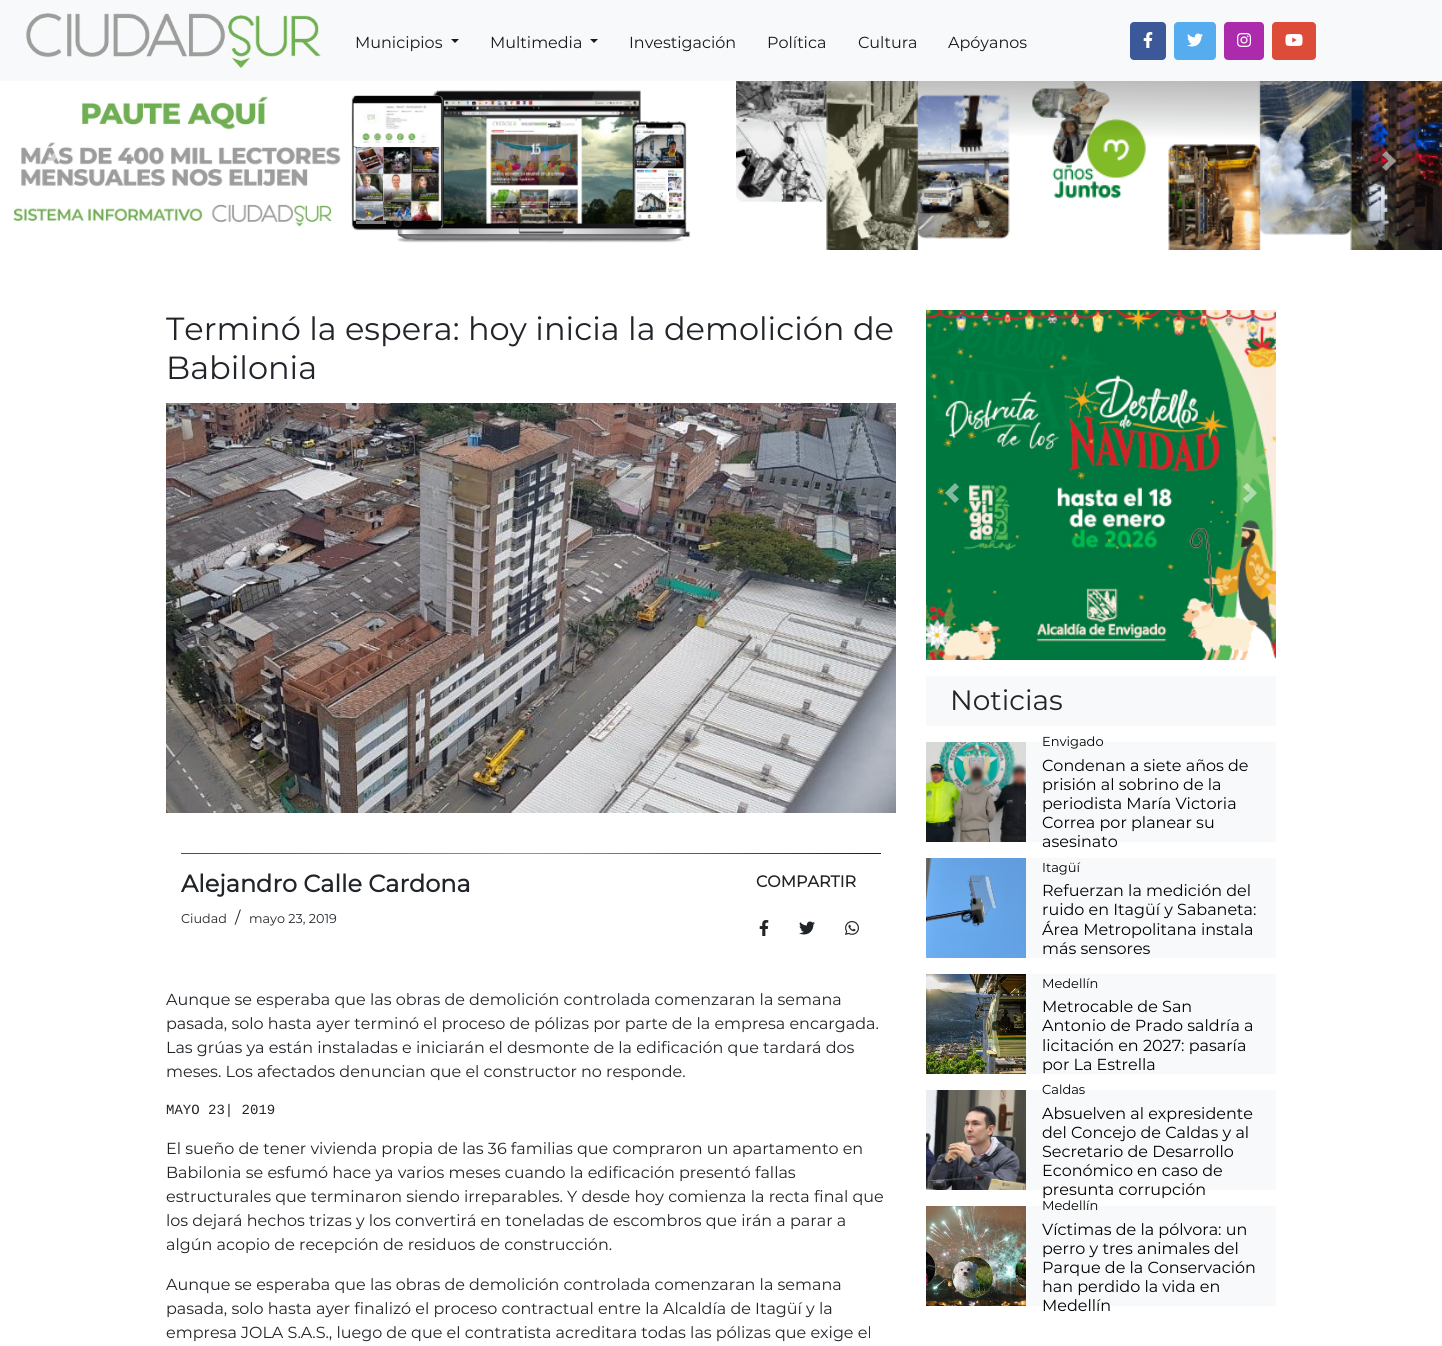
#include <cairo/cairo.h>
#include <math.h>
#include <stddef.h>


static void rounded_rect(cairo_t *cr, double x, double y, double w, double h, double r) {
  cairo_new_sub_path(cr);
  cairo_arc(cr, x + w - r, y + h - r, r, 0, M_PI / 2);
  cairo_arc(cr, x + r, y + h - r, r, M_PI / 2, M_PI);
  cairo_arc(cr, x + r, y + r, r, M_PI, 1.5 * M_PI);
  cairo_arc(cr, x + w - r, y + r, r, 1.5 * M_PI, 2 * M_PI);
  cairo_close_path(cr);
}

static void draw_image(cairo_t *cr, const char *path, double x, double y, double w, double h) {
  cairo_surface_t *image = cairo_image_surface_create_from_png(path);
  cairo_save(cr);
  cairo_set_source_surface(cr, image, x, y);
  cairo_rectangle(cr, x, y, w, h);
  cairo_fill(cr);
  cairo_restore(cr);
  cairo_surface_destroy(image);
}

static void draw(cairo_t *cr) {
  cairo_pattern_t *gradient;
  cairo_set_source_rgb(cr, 1, 1, 1);
  cairo_paint(cr);
  cairo_set_source_rgb(cr, 248 / 255.0, 249 / 255.0, 250 / 255.0);
  cairo_rectangle(cr, 0, 0, 1442, 81);
  cairo_fill(cr);
  draw_image(cr, "images/1.png", 26, 13, 295, 55);
  cairo_set_source_rgb(cr, 25 / 255.0, 25 / 255.0, 25 / 255.0);
  cairo_new_path(cr);
  cairo_move_to(cr, 451, 39);
  cairo_line_to(cr, 459, 39);
  cairo_line_to(cr, 455, 43);
  cairo_close_path(cr);
  cairo_fill(cr);
  cairo_new_path(cr);
  cairo_move_to(cr, 590, 39);
  cairo_line_to(cr, 598, 39);
  cairo_line_to(cr, 594, 43);
  cairo_close_path(cr);
  cairo_fill(cr);
  cairo_set_source_rgb(cr, 59 / 255.0, 89 / 255.0, 152 / 255.0);
  rounded_rect(cr, 1130, 22, 36, 38, 4);
  cairo_fill(cr);
  draw_image(cr, "images/2.png", 1143, 32, 10, 16);
  cairo_set_source_rgb(cr, 85 / 255.0, 172 / 255.0, 238 / 255.0);
  rounded_rect(cr, 1174, 22, 42, 38, 4);
  cairo_fill(cr);
  draw_image(cr, "images/3.png", 1187, 33, 16, 14);
  cairo_set_source_rgb(cr, 172 / 255.0, 43 / 255.0, 172 / 255.0);
  rounded_rect(cr, 1224, 22, 40, 38, 4);
  cairo_fill(cr);
  draw_image(cr, "images/4.png", 1237, 33, 15, 14);
  cairo_set_source_rgb(cr, 221 / 255.0, 75 / 255.0, 57 / 255.0);
  rounded_rect(cr, 1272, 22, 44, 38, 4);
  cairo_fill(cr);
  draw_image(cr, "images/5.png", 1285, 34, 18, 12);
  draw_image(cr, "images/6.png", 13, 81, 678, 162);
  cairo_set_source_rgba(cr, 1, 1, 1, 0.5);
  cairo_new_path(cr);
  cairo_move_to(cr, 56, 151);
  cairo_line_to(cr, 46, 161);
  cairo_line_to(cr, 56, 171);
  cairo_line_to(cr, 60, 167);
  cairo_line_to(cr, 53.5, 161);
  cairo_line_to(cr, 60, 155);
  cairo_close_path(cr);
  cairo_fill(cr);
  cairo_new_path(cr);
  cairo_move_to(cr, 650, 151);
  cairo_line_to(cr, 646, 155);
  cairo_line_to(cr, 652.5, 161);
  cairo_line_to(cr, 646, 167);
  cairo_line_to(cr, 650, 171);
  cairo_line_to(cr, 660, 161);
  cairo_close_path(cr);
  cairo_fill(cr);
  cairo_set_source_rgb(cr, 1, 1, 1);
  cairo_rectangle(cr, 320, 221, 13, 2);
  cairo_fill(cr);
  cairo_set_source_rgba(cr, 1, 1, 1, 0.5);
  cairo_rectangle(cr, 356, 221, 30, 3);
  cairo_fill(cr);
  draw_image(cr, "images/7.png", 736, 81, 706, 169);
  cairo_new_path(cr);
  cairo_move_to(cr, 792, 151);
  cairo_line_to(cr, 782, 161);
  cairo_line_to(cr, 792, 171);
  cairo_line_to(cr, 796, 167);
  cairo_line_to(cr, 789.5, 161);
  cairo_line_to(cr, 796, 155);
  cairo_close_path(cr);
  cairo_fill(cr);
  cairo_new_path(cr);
  cairo_move_to(cr, 1386, 151);
  cairo_line_to(cr, 1382, 155);
  cairo_line_to(cr, 1388.5, 161);
  cairo_line_to(cr, 1382, 167);
  cairo_line_to(cr, 1386, 171);
  cairo_line_to(cr, 1396, 161);
  cairo_close_path(cr);
  cairo_fill(cr);
  draw_image(cr, "images/8.png", 166, 403, 730, 410);
  gradient = cairo_pattern_create_linear(181, 854, 881, 854);
  cairo_pattern_add_color_stop_rgba(gradient, 0, 1, 0, 0, 1);
  cairo_pattern_add_color_stop_rgba(gradient, 0.5, 0, 1, 0, 1);
  cairo_pattern_add_color_stop_rgba(gradient, 1, 0, 0, 1, 1);
  cairo_set_source(cr, gradient);
  cairo_pattern_destroy(gradient);
  cairo_rectangle(cr, 181, 853, 700, 1);
  cairo_fill(cr);
  draw_image(cr, "images/9.png", 759, 920, 10, 16);
  draw_image(cr, "images/10.png", 799, 921, 16, 14);
  draw_image(cr, "images/11.png", 845, 921, 14, 14);
  draw_image(cr, "images/12.png", 926, 310, 350, 350);
  cairo_set_source_rgba(cr, 1, 1, 1, 0.5);
  cairo_new_path(cr);
  cairo_move_to(cr, 955, 483);
  cairo_line_to(cr, 945, 493);
  cairo_line_to(cr, 955, 503);
  cairo_line_to(cr, 959, 499);
  cairo_line_to(cr, 952.5, 493);
  cairo_line_to(cr, 959, 487);
  cairo_close_path(cr);
  cairo_fill(cr);
  cairo_new_path(cr);
  cairo_move_to(cr, 1247, 483);
  cairo_line_to(cr, 1243, 487);
  cairo_line_to(cr, 1249.5, 493);
  cairo_line_to(cr, 1243, 499);
  cairo_line_to(cr, 1247, 503);
  cairo_line_to(cr, 1257, 493);
  cairo_close_path(cr);
  cairo_fill(cr);
  cairo_set_source_rgb(cr, 248 / 255.0, 249 / 255.0, 250 / 255.0);
  cairo_rectangle(cr, 926, 676, 350, 50);
  cairo_fill(cr);
  draw_image(cr, "images/13.png", 926, 742, 100, 100);
  cairo_rectangle(cr, 1026, 742, 250, 100);
  cairo_fill(cr);
  draw_image(cr, "images/14.png", 926, 858, 100, 100);
  cairo_rectangle(cr, 1026, 858, 250, 100);
  cairo_fill(cr);
  draw_image(cr, "images/15.png", 926, 974, 100, 100);
  cairo_rectangle(cr, 1026, 974, 250, 100);
  cairo_fill(cr);
  draw_image(cr, "images/16.png", 926, 1090, 100, 100);
  cairo_rectangle(cr, 1026, 1090, 250, 100);
  cairo_fill(cr);
  draw_image(cr, "images/17.png", 926, 1206, 100, 100);
  cairo_rectangle(cr, 1026, 1206, 250, 100);
  cairo_fill(cr);
  cairo_select_font_face(cr, "Montserrat Thin", CAIRO_FONT_SLANT_NORMAL, CAIRO_FONT_WEIGHT_NORMAL);
  cairo_set_font_size(cr, 16);
  cairo_set_source_rgb(cr, 25 / 255.0, 25 / 255.0, 25 / 255.0);
  cairo_move_to(cr, 355, 48);
  cairo_show_text(cr, "Municipios");
  cairo_move_to(cr, 490, 48);
  cairo_show_text(cr, "Multimedia");
  cairo_move_to(cr, 629, 48);
  cairo_show_text(cr, "Investigación");
  cairo_move_to(cr, 767, 48);
  cairo_show_text(cr, "Política");
  cairo_move_to(cr, 858, 48);
  cairo_show_text(cr, "Cultura");
  cairo_move_to(cr, 948, 48);
  cairo_show_text(cr, "Apóyanos");
  cairo_set_font_size(cr, 32);
  cairo_set_source_rgb(cr, 33 / 255.0, 37 / 255.0, 41 / 255.0);
  cairo_move_to(cr, 166, 340);
  cairo_show_text(cr, "Terminó la espera: hoy inicia la demolición de");
  cairo_move_to(cr, 166, 379);
  cairo_show_text(cr, "Babilonia");
  cairo_select_font_face(cr, "Montserrat", CAIRO_FONT_SLANT_NORMAL, CAIRO_FONT_WEIGHT_BOLD);
  cairo_set_font_size(cr, 24);
  cairo_move_to(cr, 181, 892);
  cairo_show_text(cr, "Alejandro Calle Cardona");
  cairo_select_font_face(cr, "Montserrat Thin", CAIRO_FONT_SLANT_NORMAL, CAIRO_FONT_WEIGHT_NORMAL);
  cairo_set_font_size(cr, 12.75);
  cairo_move_to(cr, 181, 923);
  cairo_show_text(cr, "Ciudad");
  cairo_set_font_size(cr, 16);
  cairo_move_to(cr, 235, 923);
  cairo_show_text(cr, "/");
  cairo_set_font_size(cr, 12.75);
  cairo_move_to(cr, 249, 923);
  cairo_show_text(cr, "mayo 23, 2019");
  cairo_select_font_face(cr, "Montserrat", CAIRO_FONT_SLANT_NORMAL, CAIRO_FONT_WEIGHT_BOLD);
  cairo_set_font_size(cr, 16);
  cairo_move_to(cr, 756, 887);
  cairo_show_text(cr, "COMPARTIR");
  cairo_select_font_face(cr, "Montserrat Thin", CAIRO_FONT_SLANT_NORMAL, CAIRO_FONT_WEIGHT_NORMAL);
  cairo_move_to(cr, 166, 1005);
  cairo_show_text(cr, "Aunque se esperaba que las obras de demolición controlada comenzaran la semana");
  cairo_move_to(cr, 166, 1029);
  cairo_show_text(cr, "pasada, solo hasta ayer terminó el proceso de pólizas por parte de la empresa encargada.");
  cairo_move_to(cr, 166, 1053);
  cairo_show_text(cr, "Las grúas ya están instaladas e iniciarán el desmonte de la edificación que tardará dos");
  cairo_move_to(cr, 166, 1077);
  cairo_show_text(cr, "meses. Los afectados denuncian que el constructor no responde.");
  cairo_select_font_face(cr, "Liberation Mono", CAIRO_FONT_SLANT_NORMAL, CAIRO_FONT_WEIGHT_NORMAL);
  cairo_set_font_size(cr, 14);
  cairo_move_to(cr, 166, 1114);
  cairo_show_text(cr, "MAYO 23| 2019");
  cairo_select_font_face(cr, "Montserrat Thin", CAIRO_FONT_SLANT_NORMAL, CAIRO_FONT_WEIGHT_NORMAL);
  cairo_set_font_size(cr, 16);
  cairo_move_to(cr, 166, 1154);
  cairo_show_text(cr, "El sueño de tener vivienda propia de las 36 familias que compraron un apartamento en");
  cairo_move_to(cr, 166, 1178);
  cairo_show_text(cr, "Babilonia se esfumó hace ya varios meses cuando la edificación presentó fallas");
  cairo_move_to(cr, 166, 1202);
  cairo_show_text(cr, "estructurales que terminaron siendo irreparables. Y desde hoy comienza la recta final que");
  cairo_move_to(cr, 166, 1226);
  cairo_show_text(cr, "los dejará hechos trizas y los convertirá en toneladas de escombros que irán a parar a");
  cairo_move_to(cr, 166, 1250);
  cairo_show_text(cr, "algún acopio de recepción de residuos de construcción.");
  cairo_move_to(cr, 166, 1290);
  cairo_show_text(cr, "Aunque se esperaba que las obras de demolición controlada comenzaran la semana");
  cairo_move_to(cr, 166, 1314);
  cairo_show_text(cr, "pasada, solo hasta ayer finalizó el proceso contractual entre la Alcaldía de Itagüí y la");
  cairo_move_to(cr, 166, 1338);
  cairo_show_text(cr, "empresa JOLA S.A.S., luego de que el contratista acreditara todas las pólizas que exige el");
  cairo_set_font_size(cr, 28);
  cairo_move_to(cr, 950, 710);
  cairo_show_text(cr, "Noticias");
  cairo_set_font_size(cr, 13);
  cairo_set_source_rgb(cr, 0, 0, 0);
  cairo_move_to(cr, 1042, 746);
  cairo_show_text(cr, "Envigado");
  cairo_set_font_size(cr, 16);
  cairo_move_to(cr, 1042, 771);
  cairo_show_text(cr, "Condenan a siete años de");
  cairo_move_to(cr, 1042, 790);
  cairo_show_text(cr, "prisión al sobrino de la");
  cairo_move_to(cr, 1042, 809);
  cairo_show_text(cr, "periodista María Victoria");
  cairo_move_to(cr, 1042, 828);
  cairo_show_text(cr, "Correa por planear su");
  cairo_move_to(cr, 1042, 847);
  cairo_show_text(cr, "asesinato");
  cairo_set_font_size(cr, 13);
  cairo_move_to(cr, 1042, 872);
  cairo_show_text(cr, "Itagüí");
  cairo_set_font_size(cr, 16);
  cairo_move_to(cr, 1042, 896);
  cairo_show_text(cr, "Refuerzan la medición del");
  cairo_move_to(cr, 1042, 915);
  cairo_show_text(cr, "ruido en Itagüí y Sabaneta:");
  cairo_move_to(cr, 1042, 935);
  cairo_show_text(cr, "Área Metropolitana instala");
  cairo_move_to(cr, 1042, 954);
  cairo_show_text(cr, "más sensores");
  cairo_set_font_size(cr, 13);
  cairo_move_to(cr, 1042, 988);
  cairo_show_text(cr, "Medellín");
  cairo_set_font_size(cr, 16);
  cairo_move_to(cr, 1042, 1012);
  cairo_show_text(cr, "Metrocable de San");
  cairo_move_to(cr, 1042, 1031);
  cairo_show_text(cr, "Antonio de Prado saldría a");
  cairo_move_to(cr, 1042, 1051);
  cairo_show_text(cr, "licitación en 2027: pasaría");
  cairo_move_to(cr, 1042, 1070);
  cairo_show_text(cr, "por La Estrella");
  cairo_set_font_size(cr, 13);
  cairo_move_to(cr, 1042, 1094);
  cairo_show_text(cr, "Caldas");
  cairo_set_font_size(cr, 16);
  cairo_move_to(cr, 1042, 1119);
  cairo_show_text(cr, "Absuelven al expresidente");
  cairo_move_to(cr, 1042, 1138);
  cairo_show_text(cr, "del Concejo de Caldas y al");
  cairo_move_to(cr, 1042, 1157);
  cairo_show_text(cr, "Secretario de Desarrollo");
  cairo_move_to(cr, 1042, 1176);
  cairo_show_text(cr, "Económico en caso de");
  cairo_move_to(cr, 1042, 1195);
  cairo_show_text(cr, "presunta corrupción");
  cairo_set_font_size(cr, 13);
  cairo_move_to(cr, 1042, 1210);
  cairo_show_text(cr, "Medellín");
  cairo_set_font_size(cr, 16);
  cairo_move_to(cr, 1042, 1235);
  cairo_show_text(cr, "Víctimas de la pólvora: un");
  cairo_move_to(cr, 1042, 1254);
  cairo_show_text(cr, "perro y tres animales del");
  cairo_move_to(cr, 1042, 1273);
  cairo_show_text(cr, "Parque de la Conservación");
  cairo_move_to(cr, 1042, 1292);
  cairo_show_text(cr, "han perdido la vida en");
  cairo_move_to(cr, 1042, 1311);
  cairo_show_text(cr, "Medellín");
}

int main(void) {
  cairo_surface_t *surface = cairo_image_surface_create(CAIRO_FORMAT_RGB24, 1442, 1346);
  cairo_t *cr = cairo_create(surface);
  cairo_font_options_t *options = cairo_font_options_create();
  cairo_font_options_set_hint_metrics(options, CAIRO_HINT_METRICS_OFF);
  cairo_font_options_set_hint_style(options, CAIRO_HINT_STYLE_NONE);
  cairo_set_font_options(cr, options);
  cairo_set_miter_limit(cr, 4);
  draw(cr);
  cairo_surface_write_to_png(surface, "out.png");
  cairo_font_options_destroy(options);
  cairo_destroy(cr);
  cairo_surface_destroy(surface);
  return 0;
}
